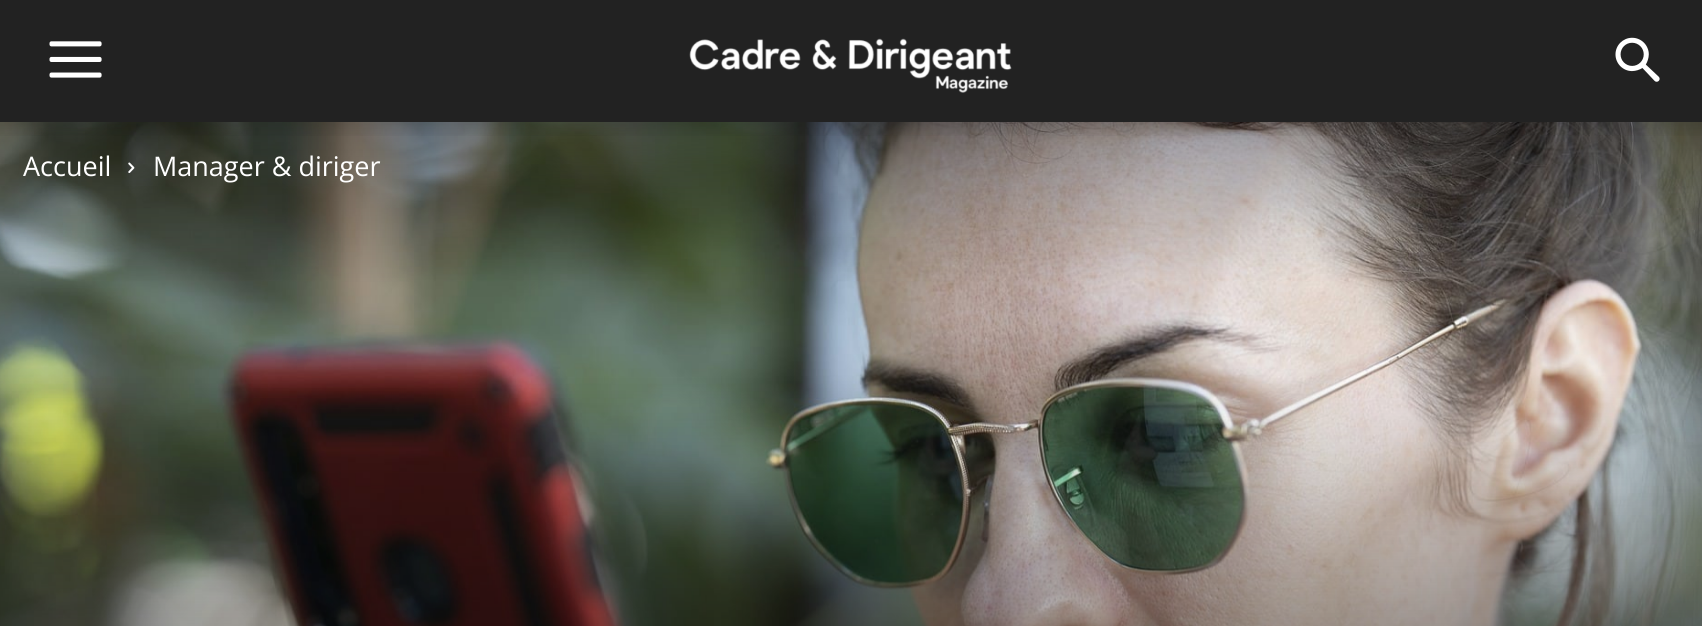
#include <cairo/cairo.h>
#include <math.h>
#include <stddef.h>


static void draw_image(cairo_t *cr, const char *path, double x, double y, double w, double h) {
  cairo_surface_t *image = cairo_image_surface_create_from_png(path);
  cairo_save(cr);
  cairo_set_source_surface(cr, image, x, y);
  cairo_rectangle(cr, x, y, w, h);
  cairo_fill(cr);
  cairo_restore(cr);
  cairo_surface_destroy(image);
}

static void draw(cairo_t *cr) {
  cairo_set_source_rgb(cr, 1, 1, 1);
  cairo_paint(cr);
  cairo_set_source_rgb(cr, 34 / 255.0, 34 / 255.0, 34 / 255.0);
  cairo_rectangle(cr, 0, 0, 1702, 122);
  cairo_fill(cr);
  draw_image(cr, "images/1.png", 49, 41, 53, 37);
  draw_image(cr, "images/2.png", 689, 38, 323, 55);
  draw_image(cr, "images/3.png", 1615, 37, 45, 45);
  draw_image(cr, "images/5.png", 0, 122, 1702, 504);
  draw_image(cr, "images/4.png", 0, 122, 1702, 14);
  draw_image(cr, "images/6.png", 128, 162, 7, 11);
  cairo_select_font_face(cr, "Open Sans", CAIRO_FONT_SLANT_NORMAL, CAIRO_FONT_WEIGHT_NORMAL);
  cairo_set_font_size(cr, 27);
  cairo_set_source_rgb(cr, 1, 1, 1);
  cairo_move_to(cr, 23, 176);
  cairo_show_text(cr, "Accueil");
  cairo_move_to(cr, 153, 176);
  cairo_show_text(cr, "Manager & diriger");
}

int main(void) {
  cairo_surface_t *surface = cairo_image_surface_create(CAIRO_FORMAT_RGB24, 1702, 626);
  cairo_t *cr = cairo_create(surface);
  cairo_font_options_t *options = cairo_font_options_create();
  cairo_font_options_set_hint_metrics(options, CAIRO_HINT_METRICS_OFF);
  cairo_font_options_set_hint_style(options, CAIRO_HINT_STYLE_NONE);
  cairo_set_font_options(cr, options);
  cairo_set_miter_limit(cr, 4);
  draw(cr);
  cairo_surface_write_to_png(surface, "out.png");
  cairo_font_options_destroy(options);
  cairo_destroy(cr);
  cairo_surface_destroy(surface);
  return 0;
}
